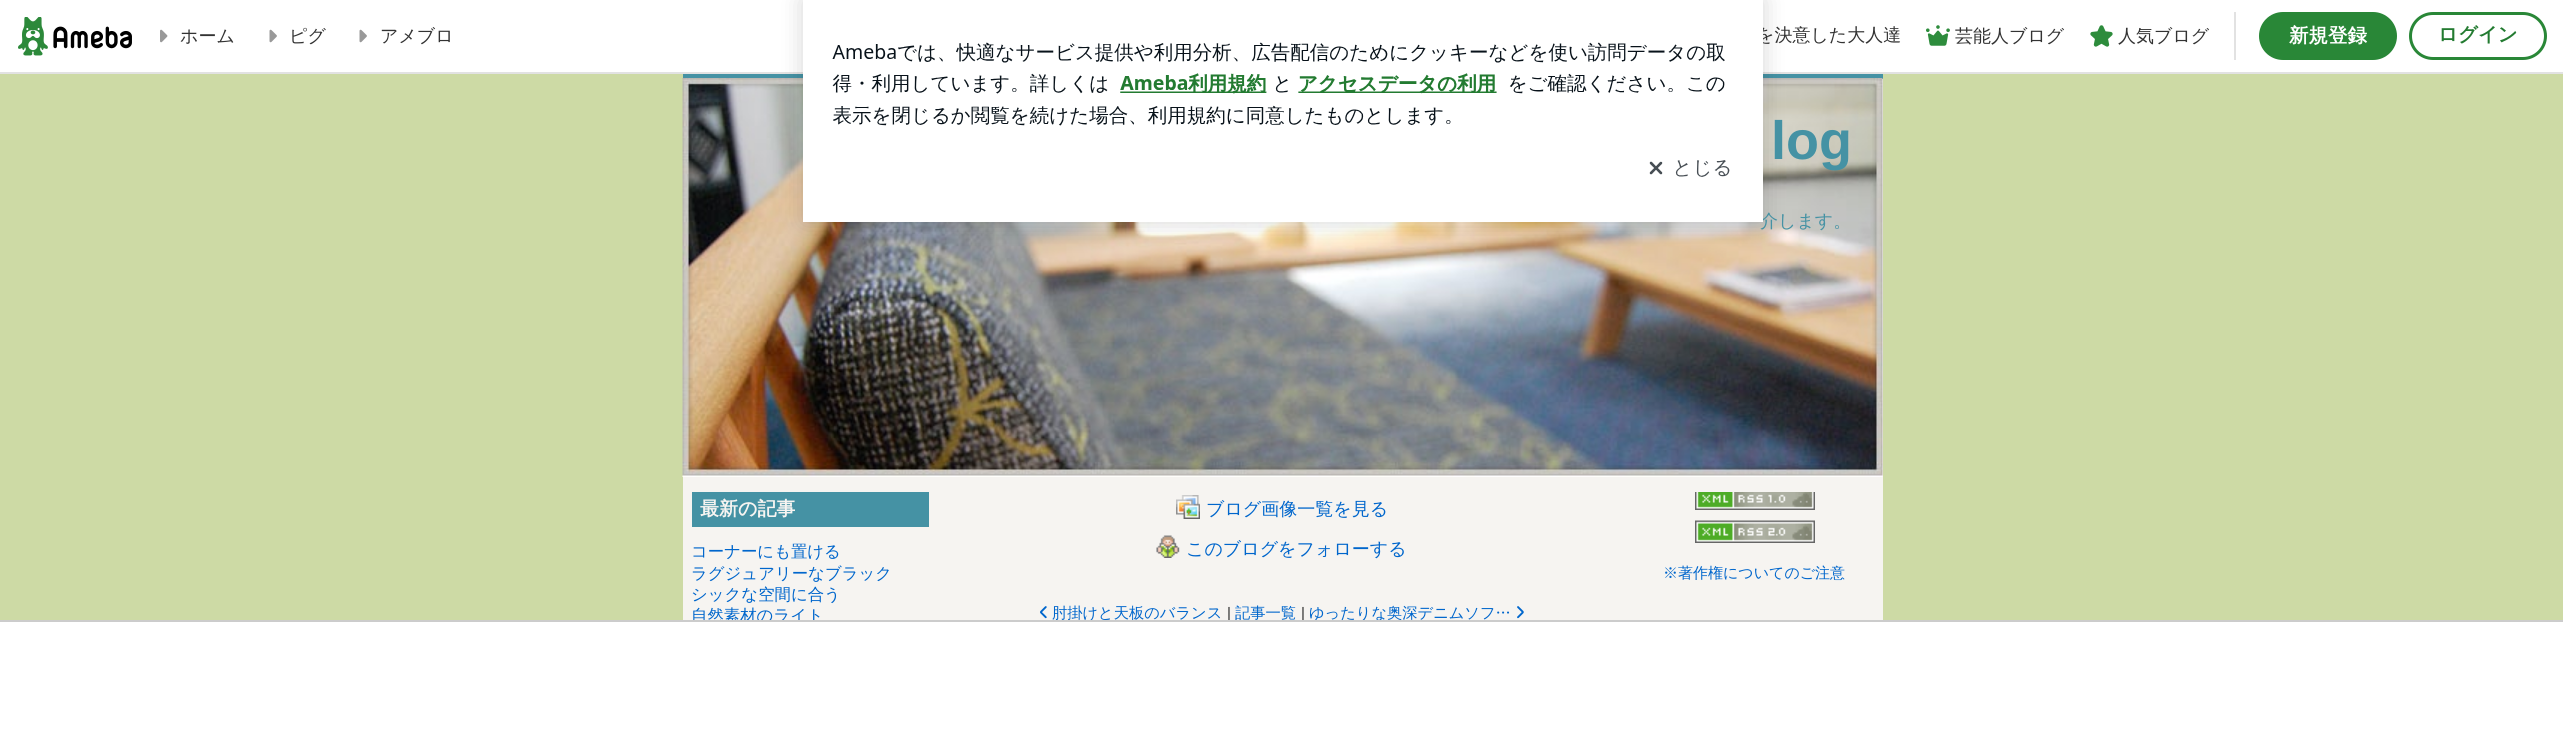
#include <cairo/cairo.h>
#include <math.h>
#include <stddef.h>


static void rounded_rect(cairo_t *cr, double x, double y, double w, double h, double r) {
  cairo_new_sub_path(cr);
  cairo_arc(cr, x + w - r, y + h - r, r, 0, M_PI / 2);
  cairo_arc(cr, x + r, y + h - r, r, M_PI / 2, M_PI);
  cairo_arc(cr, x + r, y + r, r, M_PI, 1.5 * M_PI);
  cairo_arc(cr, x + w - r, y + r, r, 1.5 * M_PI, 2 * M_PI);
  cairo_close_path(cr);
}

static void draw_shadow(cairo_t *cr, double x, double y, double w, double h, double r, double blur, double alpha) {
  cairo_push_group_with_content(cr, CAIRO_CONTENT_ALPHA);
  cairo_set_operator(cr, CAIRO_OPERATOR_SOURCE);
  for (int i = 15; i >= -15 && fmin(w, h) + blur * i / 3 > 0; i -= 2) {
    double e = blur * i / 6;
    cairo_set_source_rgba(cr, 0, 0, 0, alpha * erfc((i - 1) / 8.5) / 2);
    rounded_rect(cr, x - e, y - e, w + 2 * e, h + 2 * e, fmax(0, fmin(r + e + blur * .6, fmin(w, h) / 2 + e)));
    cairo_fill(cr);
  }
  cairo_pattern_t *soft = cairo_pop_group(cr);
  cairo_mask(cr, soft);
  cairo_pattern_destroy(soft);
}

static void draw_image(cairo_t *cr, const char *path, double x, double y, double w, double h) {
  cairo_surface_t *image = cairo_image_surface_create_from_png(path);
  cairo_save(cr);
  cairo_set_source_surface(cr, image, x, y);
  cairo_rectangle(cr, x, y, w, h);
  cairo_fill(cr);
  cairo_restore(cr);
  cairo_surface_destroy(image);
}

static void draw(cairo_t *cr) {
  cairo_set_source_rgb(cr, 205 / 255.0, 218 / 255.0, 165 / 255.0);
  cairo_paint(cr);
  cairo_set_source_rgb(cr, 1, 1, 1);
  cairo_rectangle(cr, 0, 0, 2563, 72);
  cairo_fill(cr);
  cairo_set_source_rgb(cr, 226 / 255.0, 226 / 255.0, 226 / 255.0);
  cairo_rectangle(cr, 0, 72, 2563, 2);
  cairo_fill(cr);
  cairo_set_source_rgb(cr, 246 / 255.0, 244 / 255.0, 241 / 255.0);
  cairo_rectangle(cr, 683, 79, 1200, 541);
  cairo_fill(cr);
  cairo_set_source_rgb(cr, 69 / 255.0, 146 / 255.0, 164 / 255.0);
  cairo_rectangle(cr, 683, 74, 1200, 5);
  cairo_fill(cr);
  draw_image(cr, "images/7.png", 682, 78, 1201, 399);
  cairo_set_source_rgb(cr, 0, 0, 0);
  draw_shadow(cr, 803, 0, 960, 222, 0, 12, 0.16);
  draw_image(cr, "images/2.png", 18, 17, 114, 39);
  draw_image(cr, "images/3.png", 160, 29, 8, 14);
  draw_image(cr, "images/4.png", 269, 29, 8, 14);
  draw_image(cr, "images/4.png", 359, 29, 8, 14);
  draw_image(cr, "images/5.png", 1926, 25, 24, 21);
  draw_image(cr, "images/6.png", 2090, 25, 23, 22);
  cairo_set_source_rgb(cr, 226 / 255.0, 226 / 255.0, 226 / 255.0);
  cairo_rectangle(cr, 2234, 12, 2, 48);
  cairo_fill(cr);
  cairo_set_source_rgb(cr, 41 / 255.0, 135 / 255.0, 55 / 255.0);
  rounded_rect(cr, 2259, 12, 138, 48, 24);
  cairo_fill(cr);
  rounded_rect(cr, 2410.5, 13.5, 135, 45, 22.5);
  cairo_set_line_width(cr, 3);
  cairo_stroke(cr);
  cairo_set_source_rgb(cr, 69 / 255.0, 146 / 255.0, 164 / 255.0);
  cairo_rectangle(cr, 692, 492, 237, 35);
  cairo_fill(cr);
  draw_image(cr, "images/8.png", 1176, 495, 24, 24);
  draw_image(cr, "images/9.png", 1156, 535, 24, 23);
  draw_image(cr, "images/10.png", 1040, 606, 7, 13);
  draw_image(cr, "images/11.png", 1517, 606, 7, 13);
  draw_image(cr, "images/12.png", 1695, 492, 120, 18);
  draw_image(cr, "images/13.png", 1695, 520, 120, 23);
  cairo_select_font_face(cr, "WenQuanYi Zen Hei Medium", CAIRO_FONT_SLANT_NORMAL, CAIRO_FONT_WEIGHT_NORMAL);
  cairo_set_font_size(cr, 18);
  cairo_set_source_rgb(cr, 51 / 255.0, 51 / 255.0, 51 / 255.0);
  cairo_move_to(cr, 180, 42);
  cairo_show_text(cr, "ホーム");
  cairo_move_to(cr, 289, 42);
  cairo_show_text(cr, "ピグ");
  cairo_move_to(cr, 380, 42);
  cairo_show_text(cr, "アメブロ");
  cairo_move_to(cr, 1756, 41);
  cairo_show_text(cr, "を決意した大人達");
  cairo_move_to(cr, 1955, 42);
  cairo_show_text(cr, "芸能人ブログ");
  cairo_move_to(cr, 2118, 42);
  cairo_show_text(cr, "人気ブログ");
  cairo_select_font_face(cr, "WenQuanYi Zen Hei", CAIRO_FONT_SLANT_NORMAL, CAIRO_FONT_WEIGHT_BOLD);
  cairo_set_font_size(cr, 19.5);
  cairo_set_source_rgb(cr, 1, 1, 1);
  cairo_move_to(cr, 2289, 42);
  cairo_show_text(cr, "新規登録");
  cairo_set_source_rgb(cr, 35 / 255.0, 123 / 255.0, 49 / 255.0);
  cairo_move_to(cr, 2438, 41);
  cairo_show_text(cr, "ログイン");
  cairo_select_font_face(cr, "Liberation Sans", CAIRO_FONT_SLANT_NORMAL, CAIRO_FONT_WEIGHT_BOLD);
  cairo_set_font_size(cr, 54);
  cairo_set_source_rgb(cr, 69 / 255.0, 146 / 255.0, 164 / 255.0);
  cairo_move_to(cr, 1771, 159);
  cairo_show_text(cr, "log");
  cairo_select_font_face(cr, "WenQuanYi Zen Hei Medium", CAIRO_FONT_SLANT_NORMAL, CAIRO_FONT_WEIGHT_NORMAL);
  cairo_set_font_size(cr, 18);
  cairo_move_to(cr, 1760, 227);
  cairo_show_text(cr, "介します。");
  draw_image(cr, "images/1.png", 803, 0, 960, 222);
  cairo_select_font_face(cr, "WenQuanYi Zen Hei", CAIRO_FONT_SLANT_NORMAL, CAIRO_FONT_WEIGHT_BOLD);
  cairo_set_font_size(cr, 19);
  cairo_set_source_rgb(cr, 246 / 255.0, 244 / 255.0, 241 / 255.0);
  cairo_move_to(cr, 700, 515);
  cairo_show_text(cr, "最新の記事");
  cairo_select_font_face(cr, "WenQuanYi Zen Hei Medium", CAIRO_FONT_SLANT_NORMAL, CAIRO_FONT_WEIGHT_NORMAL);
  cairo_set_font_size(cr, 16.4);
  cairo_set_source_rgb(cr, 0, 102 / 255.0, 204 / 255.0);
  cairo_move_to(cr, 691, 557);
  cairo_show_text(cr, "コーナーにも置ける");
  cairo_move_to(cr, 691, 579);
  cairo_show_text(cr, "ラグジュアリーなブラック");
  cairo_move_to(cr, 691, 600);
  cairo_show_text(cr, "シックな空間に合う");
  cairo_move_to(cr, 691, 621);
  cairo_show_text(cr, "自然素材のライト");
  cairo_set_font_size(cr, 18);
  cairo_move_to(cr, 1206, 515);
  cairo_show_text(cr, "ブログ画像一覧を見る");
  cairo_move_to(cr, 1186, 555);
  cairo_show_text(cr, "このブログをフォローする");
  cairo_set_font_size(cr, 15.25);
  cairo_move_to(cr, 1052, 618);
  cairo_show_text(cr, "肘掛けと天板のバランス");
  cairo_select_font_face(cr, "Liberation Sans", CAIRO_FONT_SLANT_NORMAL, CAIRO_FONT_WEIGHT_NORMAL);
  cairo_set_source_rgb(cr, 51 / 255.0, 51 / 255.0, 51 / 255.0);
  cairo_move_to(cr, 1227, 618);
  cairo_show_text(cr, "|");
  cairo_select_font_face(cr, "WenQuanYi Zen Hei Medium", CAIRO_FONT_SLANT_NORMAL, CAIRO_FONT_WEIGHT_NORMAL);
  cairo_set_source_rgb(cr, 0, 102 / 255.0, 204 / 255.0);
  cairo_move_to(cr, 1235, 618);
  cairo_show_text(cr, "記事一覧");
  cairo_select_font_face(cr, "Liberation Sans", CAIRO_FONT_SLANT_NORMAL, CAIRO_FONT_WEIGHT_NORMAL);
  cairo_set_source_rgb(cr, 51 / 255.0, 51 / 255.0, 51 / 255.0);
  cairo_move_to(cr, 1301, 618);
  cairo_show_text(cr, "|");
  cairo_select_font_face(cr, "WenQuanYi Zen Hei Medium", CAIRO_FONT_SLANT_NORMAL, CAIRO_FONT_WEIGHT_NORMAL);
  cairo_set_source_rgb(cr, 0, 102 / 255.0, 204 / 255.0);
  cairo_move_to(cr, 1309, 618);
  cairo_show_text(cr, "ゆったりな奥深デニムソフ…");
  cairo_set_font_size(cr, 15);
  cairo_move_to(cr, 1663, 578);
  cairo_show_text(cr, "※著作権についてのご注意");
  cairo_set_source_rgb(cr, 1, 1, 1);
  cairo_rectangle(cr, 0, 622, 2563, 134);
  cairo_fill(cr);
  cairo_set_source_rgb(cr, 204 / 255.0, 204 / 255.0, 204 / 255.0);
  cairo_rectangle(cr, 0, 620, 2563, 2);
  cairo_fill(cr);
}

int main(void) {
  cairo_surface_t *surface = cairo_image_surface_create(CAIRO_FORMAT_RGB24, 2563, 756);
  cairo_t *cr = cairo_create(surface);
  cairo_font_options_t *options = cairo_font_options_create();
  cairo_font_options_set_hint_metrics(options, CAIRO_HINT_METRICS_OFF);
  cairo_font_options_set_hint_style(options, CAIRO_HINT_STYLE_NONE);
  cairo_set_font_options(cr, options);
  cairo_set_miter_limit(cr, 4);
  draw(cr);
  cairo_surface_write_to_png(surface, "out.png");
  cairo_font_options_destroy(options);
  cairo_destroy(cr);
  cairo_surface_destroy(surface);
  return 0;
}
